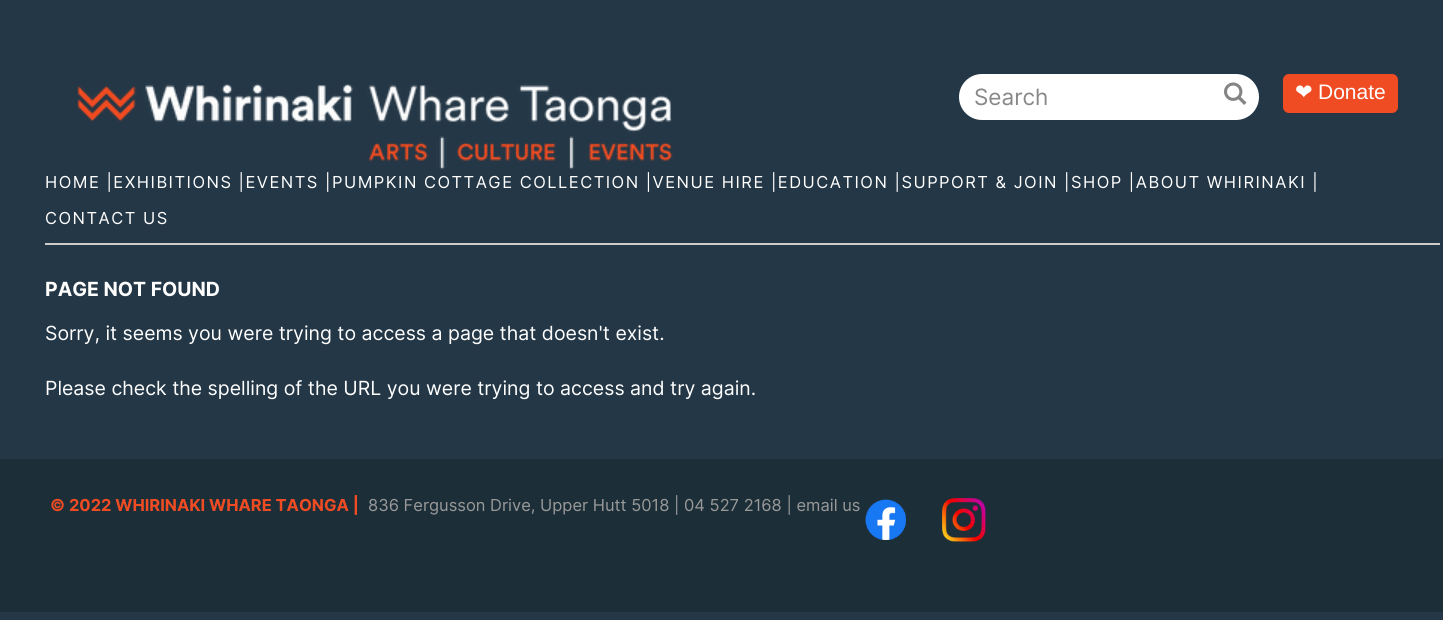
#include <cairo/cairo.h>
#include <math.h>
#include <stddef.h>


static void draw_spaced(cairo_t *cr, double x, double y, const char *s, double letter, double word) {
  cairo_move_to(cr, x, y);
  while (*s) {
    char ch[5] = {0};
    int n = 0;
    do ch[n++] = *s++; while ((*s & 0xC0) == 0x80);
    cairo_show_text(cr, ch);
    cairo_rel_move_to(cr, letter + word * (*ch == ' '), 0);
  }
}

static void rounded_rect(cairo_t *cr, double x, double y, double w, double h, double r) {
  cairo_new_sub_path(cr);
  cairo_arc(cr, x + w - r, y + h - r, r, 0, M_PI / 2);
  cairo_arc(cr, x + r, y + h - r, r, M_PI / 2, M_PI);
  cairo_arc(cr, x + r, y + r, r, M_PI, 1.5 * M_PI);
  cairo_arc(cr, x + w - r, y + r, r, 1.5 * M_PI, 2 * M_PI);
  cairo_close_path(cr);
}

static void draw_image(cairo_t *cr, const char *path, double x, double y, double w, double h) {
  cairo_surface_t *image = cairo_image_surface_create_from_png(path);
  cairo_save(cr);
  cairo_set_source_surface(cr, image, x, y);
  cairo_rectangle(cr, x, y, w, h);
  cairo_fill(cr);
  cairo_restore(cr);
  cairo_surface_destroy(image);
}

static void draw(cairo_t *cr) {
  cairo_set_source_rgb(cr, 36 / 255.0, 55 / 255.0, 70 / 255.0);
  cairo_paint(cr);
  draw_image(cr, "images/1.png", 77, 83, 596, 87);
  cairo_set_source_rgb(cr, 1, 1, 1);
  rounded_rect(cr, 959, 74, 300, 46, 23);
  cairo_fill(cr);
  draw_image(cr, "images/2.png", 1224, 82, 23, 23);
  cairo_set_source_rgb(cr, 240 / 255.0, 76 / 255.0, 36 / 255.0);
  rounded_rect(cr, 1283, 74, 115, 39, 6);
  cairo_fill(cr);
  cairo_set_source_rgb(cr, 204 / 255.0, 204 / 255.0, 204 / 255.0);
  cairo_rectangle(cr, 45, 243, 1395, 2);
  cairo_fill(cr);
  cairo_set_source_rgb(cr, 28 / 255.0, 46 / 255.0, 56 / 255.0);
  cairo_rectangle(cr, 0, 459, 1443, 153);
  cairo_fill(cr);
  draw_image(cr, "images/3.png", 865, 499, 41, 41);
  draw_image(cr, "images/4.png", 942, 498, 44, 44);
  cairo_select_font_face(cr, "Inter", CAIRO_FONT_SLANT_NORMAL, CAIRO_FONT_WEIGHT_NORMAL);
  cairo_set_font_size(cr, 22.5);
  cairo_set_source_rgb(cr, 136 / 255.0, 136 / 255.0, 136 / 255.0);
  cairo_move_to(cr, 974, 105);
  cairo_show_text(cr, "Search");
  cairo_select_font_face(cr, "DejaVu Sans", CAIRO_FONT_SLANT_NORMAL, CAIRO_FONT_WEIGHT_NORMAL);
  cairo_set_font_size(cr, 21);
  cairo_set_source_rgb(cr, 1, 1, 1);
  cairo_move_to(cr, 1295, 99);
  cairo_show_text(cr, "❤");
  cairo_select_font_face(cr, "Liberation Sans", CAIRO_FONT_SLANT_NORMAL, CAIRO_FONT_WEIGHT_NORMAL);
  cairo_move_to(cr, 1318, 99);
  cairo_show_text(cr, "Donate");
  cairo_select_font_face(cr, "Inter", CAIRO_FONT_SLANT_NORMAL, CAIRO_FONT_WEIGHT_NORMAL);
  cairo_set_font_size(cr, 16.5);
  draw_spaced(cr, 45, 188, "HOME |EXHIBITIONS |EVENTS |PUMPKIN COTTAGE COLLECTION |VENUE HIRE |EDUCATION |SUPPORT & JOIN |SHOP |ABOUT WHIRINAKI |", 1.5, 0);
  draw_spaced(cr, 45, 224, "CONTACT US", 1.5, 0);
  cairo_select_font_face(cr, "Inter", CAIRO_FONT_SLANT_NORMAL, CAIRO_FONT_WEIGHT_BOLD);
  cairo_set_font_size(cr, 19.5);
  cairo_move_to(cr, 45, 296);
  cairo_show_text(cr, "PAGE NOT FOUND");
  cairo_select_font_face(cr, "Inter", CAIRO_FONT_SLANT_NORMAL, CAIRO_FONT_WEIGHT_NORMAL);
  cairo_move_to(cr, 45, 340);
  cairo_show_text(cr, "Sorry, it seems you were trying to access a page that doesn't exist.");
  cairo_move_to(cr, 45, 395);
  cairo_show_text(cr, "Please check the spelling of the URL you were trying to access and try again.");
  cairo_select_font_face(cr, "Inter", CAIRO_FONT_SLANT_NORMAL, CAIRO_FONT_WEIGHT_BOLD);
  cairo_set_font_size(cr, 16.5);
  cairo_set_source_rgb(cr, 240 / 255.0, 76 / 255.0, 36 / 255.0);
  cairo_move_to(cr, 50, 511);
  cairo_show_text(cr, "© 2022 WHIRINAKI WHARE TAONGA |");
  cairo_select_font_face(cr, "Inter", CAIRO_FONT_SLANT_NORMAL, CAIRO_FONT_WEIGHT_NORMAL);
  cairo_set_source_rgb(cr, 153 / 255.0, 153 / 255.0, 153 / 255.0);
  cairo_move_to(cr, 368, 511);
  cairo_show_text(cr, "836 Fergusson Drive, Upper Hutt 5018 | 04 527 2168 | email us");
}

int main(void) {
  cairo_surface_t *surface = cairo_image_surface_create(CAIRO_FORMAT_RGB24, 1443, 620);
  cairo_t *cr = cairo_create(surface);
  cairo_font_options_t *options = cairo_font_options_create();
  cairo_font_options_set_hint_metrics(options, CAIRO_HINT_METRICS_OFF);
  cairo_font_options_set_hint_style(options, CAIRO_HINT_STYLE_NONE);
  cairo_set_font_options(cr, options);
  cairo_set_miter_limit(cr, 4);
  draw(cr);
  cairo_surface_write_to_png(surface, "out.png");
  cairo_font_options_destroy(options);
  cairo_destroy(cr);
  cairo_surface_destroy(surface);
  return 0;
}
